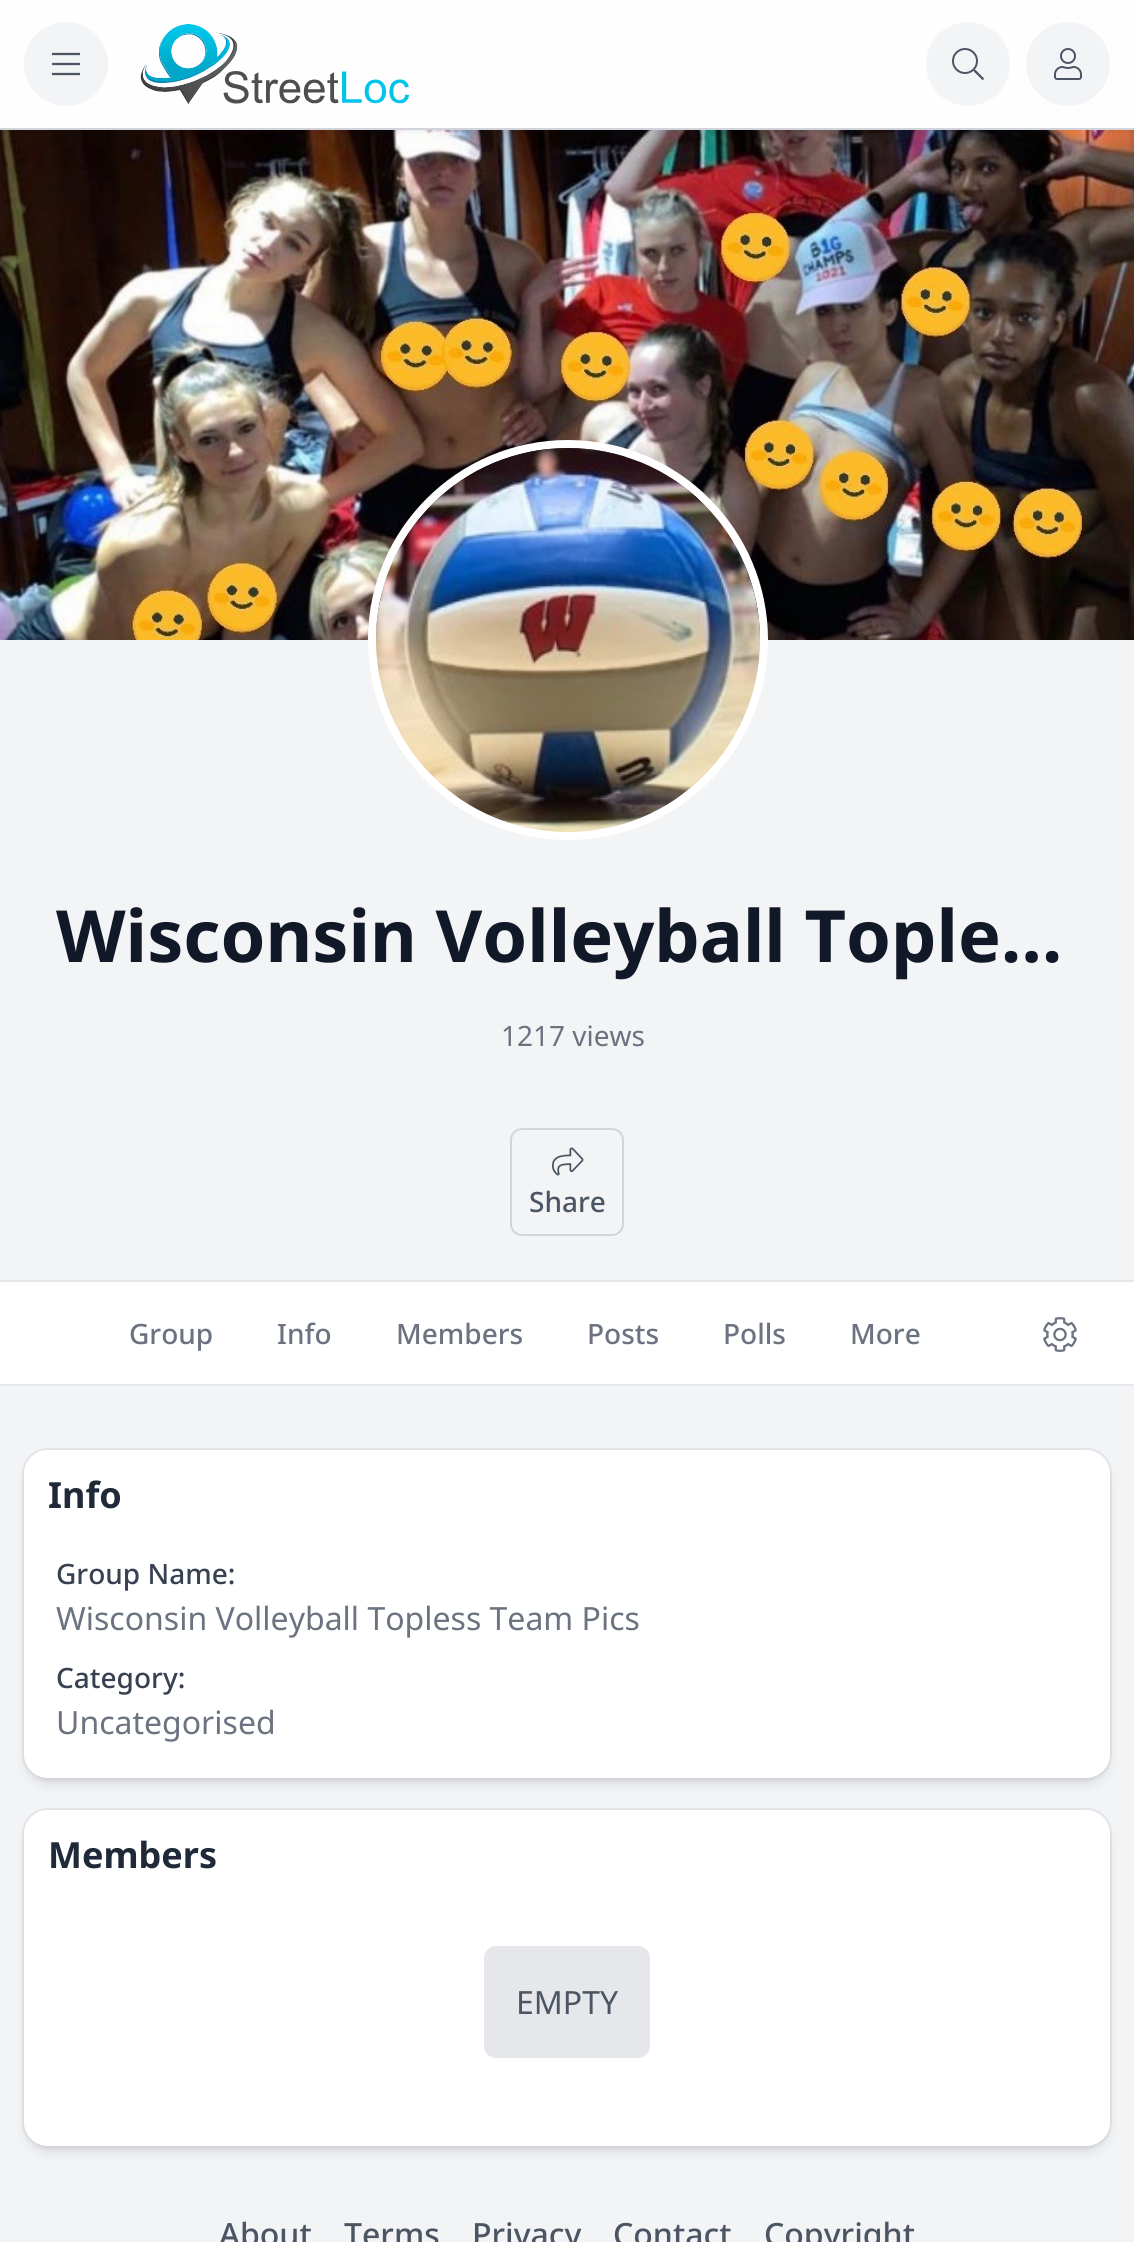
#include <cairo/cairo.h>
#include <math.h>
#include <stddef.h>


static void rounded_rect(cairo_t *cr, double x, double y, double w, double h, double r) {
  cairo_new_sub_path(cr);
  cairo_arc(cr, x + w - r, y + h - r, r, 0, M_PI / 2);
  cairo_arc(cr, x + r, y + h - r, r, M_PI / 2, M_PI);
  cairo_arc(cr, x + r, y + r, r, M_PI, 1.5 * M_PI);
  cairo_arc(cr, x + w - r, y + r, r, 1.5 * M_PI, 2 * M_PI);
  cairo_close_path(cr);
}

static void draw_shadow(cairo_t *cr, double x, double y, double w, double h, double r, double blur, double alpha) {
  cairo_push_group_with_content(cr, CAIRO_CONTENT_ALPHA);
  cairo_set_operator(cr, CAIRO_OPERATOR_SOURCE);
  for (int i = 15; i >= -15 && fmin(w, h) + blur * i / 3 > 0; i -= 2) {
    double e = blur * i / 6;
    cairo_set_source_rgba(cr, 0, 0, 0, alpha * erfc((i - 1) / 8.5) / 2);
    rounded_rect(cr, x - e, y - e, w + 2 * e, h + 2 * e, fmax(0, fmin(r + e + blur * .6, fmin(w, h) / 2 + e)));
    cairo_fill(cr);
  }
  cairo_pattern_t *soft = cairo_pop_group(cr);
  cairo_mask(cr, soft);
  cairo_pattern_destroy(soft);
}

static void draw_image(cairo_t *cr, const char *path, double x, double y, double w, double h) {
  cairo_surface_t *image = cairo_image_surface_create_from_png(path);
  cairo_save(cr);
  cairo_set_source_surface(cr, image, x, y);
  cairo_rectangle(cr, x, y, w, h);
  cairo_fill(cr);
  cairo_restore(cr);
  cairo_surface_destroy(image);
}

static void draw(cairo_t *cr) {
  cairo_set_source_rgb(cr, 243 / 255.0, 244 / 255.0, 246 / 255.0);
  cairo_paint(cr);
  draw_image(cr, "images/5.png", 0, 130, 1134, 510);
  cairo_set_source_rgb(cr, 0, 0, 0);
  draw_shadow(cr, 0, 2, 1134, 128, 0, 3, 0.1);
  cairo_rectangle(cr, -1, -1, 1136, 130);
  cairo_set_source_rgb(cr, 209 / 255.0, 213 / 255.0, 219 / 255.0);
  cairo_stroke(cr);
  cairo_set_source_rgb(cr, 254 / 255.0, 254 / 255.0, 1);
  cairo_rectangle(cr, 0, 0, 1134, 128);
  cairo_fill(cr);
  cairo_set_source_rgb(cr, 243 / 255.0, 244 / 255.0, 246 / 255.0);
  cairo_arc(cr, 66, 64, 42, 0, 2 * M_PI);
  cairo_fill(cr);
  draw_image(cr, "images/1.png", 52, 52, 28, 24);
  draw_image(cr, "images/2.png", 140, 24, 270, 80);
  cairo_arc(cr, 968, 64, 42, 0, 2 * M_PI);
  cairo_fill(cr);
  draw_image(cr, "images/3.png", 952, 48, 32, 32);
  cairo_arc(cr, 1068, 64, 42, 0, 2 * M_PI);
  cairo_fill(cr);
  draw_image(cr, "images/4.png", 1054, 48, 28, 32);
  cairo_arc(cr, 568, 640, 196, 0, 2 * M_PI);
  cairo_set_source_rgb(cr, 1, 1, 1);
  cairo_set_line_width(cr, 8);
  cairo_stroke(cr);
  draw_image(cr, "images/6.png", 376, 448, 384, 384);
  rounded_rect(cr, 511, 1129, 112, 106, 11);
  cairo_set_source_rgb(cr, 209 / 255.0, 213 / 255.0, 219 / 255.0);
  cairo_set_line_width(cr, 2);
  cairo_stroke(cr);
  draw_image(cr, "images/7.png", 552, 1147, 32, 29);
  cairo_set_source_rgb(cr, 229 / 255.0, 231 / 255.0, 235 / 255.0);
  cairo_rectangle(cr, 0, 1280, 1134, 2);
  cairo_fill(cr);
  cairo_set_source_rgb(cr, 1, 1, 1);
  cairo_rectangle(cr, 0, 1282, 1134, 102);
  cairo_fill(cr);
  cairo_set_source_rgb(cr, 229 / 255.0, 231 / 255.0, 235 / 255.0);
  cairo_rectangle(cr, 0, 1384, 1134, 2);
  cairo_fill(cr);
  draw_image(cr, "images/8.png", 1043, 1317, 34, 35);
  cairo_set_source_rgb(cr, 0, 0, 0);
  draw_shadow(cr, 28, 1458, 1078, 320, 20, 4, 0.1);
  draw_shadow(cr, 26, 1460, 1082, 324, 22, 6, 0.1);
  rounded_rect(cr, 23, 1449, 1088, 330, 25);
  cairo_set_source_rgba(cr, 209 / 255.0, 213 / 255.0, 219 / 255.0, 0.5);
  cairo_stroke(cr);
  cairo_set_source_rgb(cr, 1, 1, 1);
  rounded_rect(cr, 24, 1450, 1086, 328, 24);
  cairo_fill(cr);
  cairo_set_source_rgb(cr, 0, 0, 0);
  draw_shadow(cr, 28, 1818, 1078, 328, 20, 4, 0.1);
  draw_shadow(cr, 26, 1820, 1082, 332, 22, 6, 0.1);
  rounded_rect(cr, 23, 1809, 1088, 338, 25);
  cairo_set_source_rgba(cr, 209 / 255.0, 213 / 255.0, 219 / 255.0, 0.5);
  cairo_stroke(cr);
  cairo_set_source_rgb(cr, 1, 1, 1);
  rounded_rect(cr, 24, 1810, 1086, 336, 24);
  cairo_fill(cr);
  cairo_set_source_rgb(cr, 229 / 255.0, 231 / 255.0, 235 / 255.0);
  rounded_rect(cr, 484, 1946, 166, 112, 12);
  cairo_fill(cr);
  cairo_select_font_face(cr, "Noto Sans", CAIRO_FONT_SLANT_NORMAL, CAIRO_FONT_WEIGHT_BOLD);
  cairo_set_font_size(cr, 72);
  cairo_set_source_rgb(cr, 17 / 255.0, 24 / 255.0, 39 / 255.0);
  cairo_move_to(cr, 56, 962);
  cairo_show_text(cr, "Wisconsin Volleyball Tople…");
  cairo_select_font_face(cr, "Noto Sans", CAIRO_FONT_SLANT_NORMAL, CAIRO_FONT_WEIGHT_NORMAL);
  cairo_set_font_size(cr, 28);
  cairo_set_source_rgb(cr, 107 / 255.0, 114 / 255.0, 128 / 255.0);
  cairo_move_to(cr, 501, 1046);
  cairo_show_text(cr, "1217 views");
  cairo_select_font_face(cr, "Noto Sans Medium", CAIRO_FONT_SLANT_NORMAL, CAIRO_FONT_WEIGHT_NORMAL);
  cairo_set_source_rgb(cr, 75 / 255.0, 85 / 255.0, 99 / 255.0);
  cairo_move_to(cr, 529, 1212);
  cairo_show_text(cr, "Share");
  cairo_set_source_rgb(cr, 107 / 255.0, 114 / 255.0, 128 / 255.0);
  cairo_move_to(cr, 129, 1344);
  cairo_show_text(cr, "Group");
  cairo_move_to(cr, 277, 1344);
  cairo_show_text(cr, "Info");
  cairo_move_to(cr, 396, 1344);
  cairo_show_text(cr, "Members");
  cairo_move_to(cr, 587, 1344);
  cairo_show_text(cr, "Posts");
  cairo_move_to(cr, 723, 1344);
  cairo_show_text(cr, "Polls");
  cairo_move_to(cr, 850, 1344);
  cairo_show_text(cr, "More");
  cairo_select_font_face(cr, "Noto Sans", CAIRO_FONT_SLANT_NORMAL, CAIRO_FONT_WEIGHT_BOLD);
  cairo_set_font_size(cr, 36);
  cairo_set_source_rgb(cr, 31 / 255.0, 41 / 255.0, 55 / 255.0);
  cairo_move_to(cr, 48, 1508);
  cairo_show_text(cr, "Info");
  cairo_select_font_face(cr, "Noto Sans Medium", CAIRO_FONT_SLANT_NORMAL, CAIRO_FONT_WEIGHT_NORMAL);
  cairo_set_font_size(cr, 28);
  cairo_set_source_rgb(cr, 55 / 255.0, 65 / 255.0, 81 / 255.0);
  cairo_move_to(cr, 56, 1584);
  cairo_show_text(cr, "Group Name:");
  cairo_select_font_face(cr, "Noto Sans", CAIRO_FONT_SLANT_NORMAL, CAIRO_FONT_WEIGHT_NORMAL);
  cairo_set_font_size(cr, 32);
  cairo_set_source_rgb(cr, 107 / 255.0, 114 / 255.0, 128 / 255.0);
  cairo_move_to(cr, 56, 1630);
  cairo_show_text(cr, "Wisconsin Volleyball Topless Team Pics");
  cairo_select_font_face(cr, "Noto Sans Medium", CAIRO_FONT_SLANT_NORMAL, CAIRO_FONT_WEIGHT_NORMAL);
  cairo_set_font_size(cr, 28);
  cairo_set_source_rgb(cr, 55 / 255.0, 65 / 255.0, 81 / 255.0);
  cairo_move_to(cr, 56, 1688);
  cairo_show_text(cr, "Category:");
  cairo_select_font_face(cr, "Noto Sans", CAIRO_FONT_SLANT_NORMAL, CAIRO_FONT_WEIGHT_NORMAL);
  cairo_set_font_size(cr, 32);
  cairo_set_source_rgb(cr, 107 / 255.0, 114 / 255.0, 128 / 255.0);
  cairo_move_to(cr, 56, 1734);
  cairo_show_text(cr, "Uncategorised");
  cairo_select_font_face(cr, "Noto Sans", CAIRO_FONT_SLANT_NORMAL, CAIRO_FONT_WEIGHT_BOLD);
  cairo_set_font_size(cr, 36);
  cairo_set_source_rgb(cr, 31 / 255.0, 41 / 255.0, 55 / 255.0);
  cairo_move_to(cr, 48, 1868);
  cairo_show_text(cr, "Members");
  cairo_select_font_face(cr, "Noto Sans", CAIRO_FONT_SLANT_NORMAL, CAIRO_FONT_WEIGHT_NORMAL);
  cairo_set_font_size(cr, 32);
  cairo_set_source_rgb(cr, 75 / 255.0, 85 / 255.0, 99 / 255.0);
  cairo_move_to(cr, 516, 2014);
  cairo_show_text(cr, "EMPTY");
  cairo_select_font_face(cr, "Noto Sans Medium", CAIRO_FONT_SLANT_NORMAL, CAIRO_FONT_WEIGHT_NORMAL);
  cairo_move_to(cr, 219, 2246);
  cairo_show_text(cr, "About");
  cairo_move_to(cr, 344, 2246);
  cairo_show_text(cr, "Terms");
  cairo_move_to(cr, 472, 2246);
  cairo_show_text(cr, "Privacy");
  cairo_move_to(cr, 613, 2246);
  cairo_show_text(cr, "Contact");
  cairo_move_to(cr, 764, 2246);
  cairo_show_text(cr, "Copyright");
}

int main(void) {
  cairo_surface_t *surface = cairo_image_surface_create(CAIRO_FORMAT_RGB24, 1134, 2242);
  cairo_t *cr = cairo_create(surface);
  cairo_font_options_t *options = cairo_font_options_create();
  cairo_font_options_set_hint_metrics(options, CAIRO_HINT_METRICS_OFF);
  cairo_font_options_set_hint_style(options, CAIRO_HINT_STYLE_NONE);
  cairo_set_font_options(cr, options);
  cairo_set_miter_limit(cr, 4);
  draw(cr);
  cairo_surface_write_to_png(surface, "out.png");
  cairo_font_options_destroy(options);
  cairo_destroy(cr);
  cairo_surface_destroy(surface);
  return 0;
}
